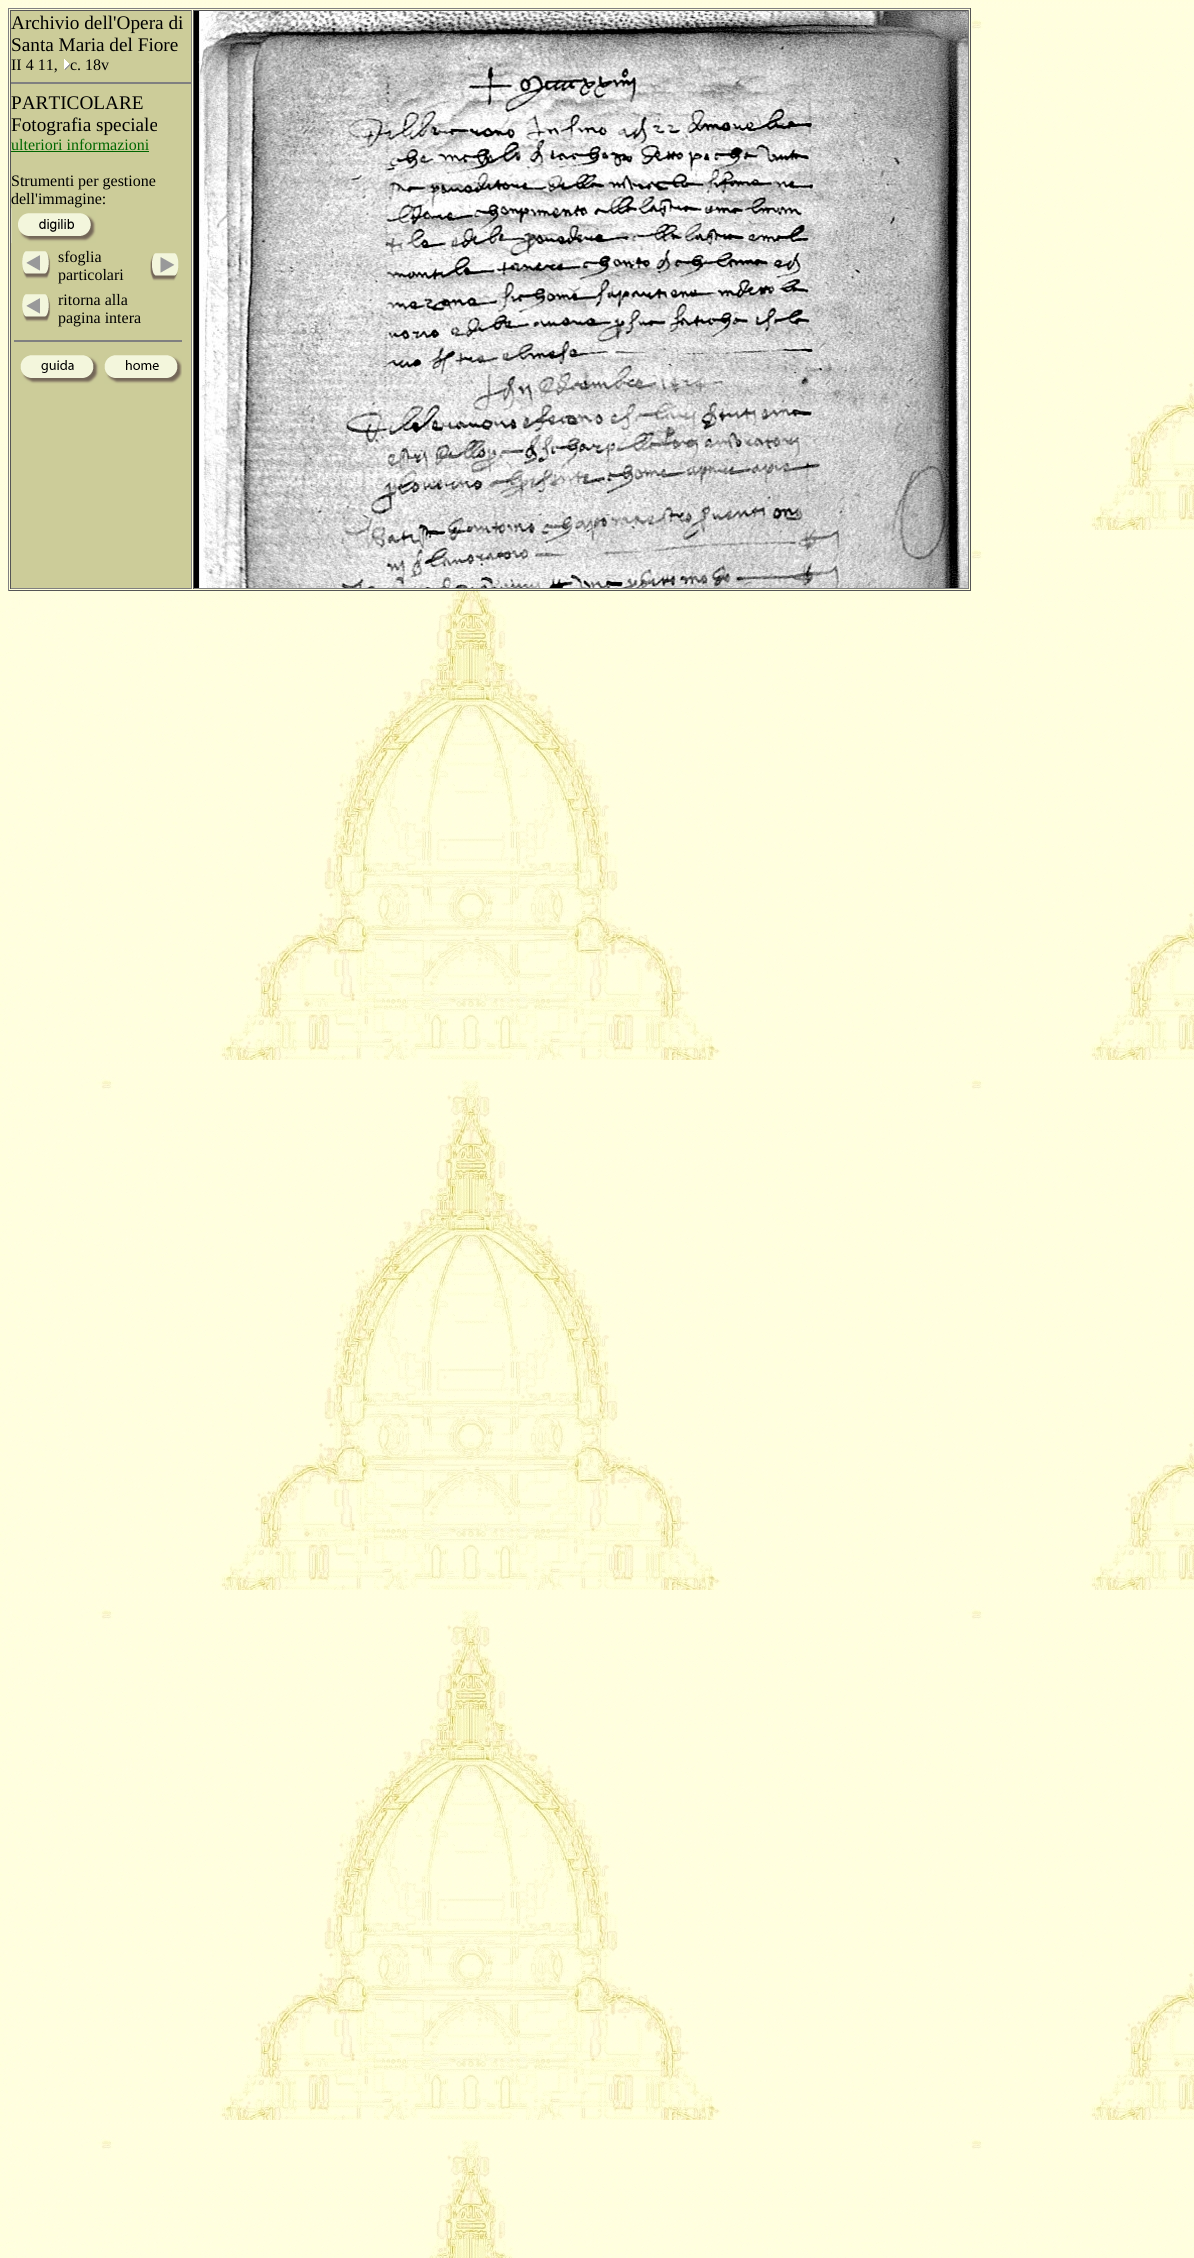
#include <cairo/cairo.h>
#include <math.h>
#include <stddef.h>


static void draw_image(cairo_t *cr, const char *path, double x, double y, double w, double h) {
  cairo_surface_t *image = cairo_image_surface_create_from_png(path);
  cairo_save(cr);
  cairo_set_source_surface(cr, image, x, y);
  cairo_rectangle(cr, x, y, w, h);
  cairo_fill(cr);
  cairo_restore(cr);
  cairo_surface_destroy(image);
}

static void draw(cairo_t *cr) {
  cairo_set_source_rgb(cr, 1, 1, 1);
  cairo_paint(cr);
  draw_image(cr, "images/1.png", 0, 0, 1194, 2258);
  cairo_set_source_rgb(cr, 128 / 255.0, 128 / 255.0, 128 / 255.0);
  cairo_rectangle(cr, 8, 8, 963, 1);
  cairo_fill(cr);
  cairo_set_source_rgb(cr, 85 / 255.0, 85 / 255.0, 85 / 255.0);
  cairo_rectangle(cr, 970, 8, 1, 583);
  cairo_fill(cr);
  cairo_rectangle(cr, 8, 590, 963, 1);
  cairo_fill(cr);
  cairo_set_source_rgb(cr, 128 / 255.0, 128 / 255.0, 128 / 255.0);
  cairo_rectangle(cr, 8, 8, 1, 583);
  cairo_fill(cr);
  cairo_set_source_rgb(cr, 204 / 255.0, 204 / 255.0, 153 / 255.0);
  cairo_rectangle(cr, 11, 11, 180, 577);
  cairo_fill(cr);
  cairo_set_source_rgb(cr, 85 / 255.0, 85 / 255.0, 85 / 255.0);
  cairo_rectangle(cr, 10, 10, 182, 1);
  cairo_fill(cr);
  cairo_set_source_rgb(cr, 128 / 255.0, 128 / 255.0, 128 / 255.0);
  cairo_rectangle(cr, 191, 10, 1, 579);
  cairo_fill(cr);
  cairo_rectangle(cr, 10, 588, 182, 1);
  cairo_fill(cr);
  cairo_set_source_rgb(cr, 85 / 255.0, 85 / 255.0, 85 / 255.0);
  cairo_rectangle(cr, 10, 10, 1, 579);
  cairo_fill(cr);
  draw_image(cr, "images/2.png", 64, 59, 6, 11);
  cairo_set_source_rgb(cr, 128 / 255.0, 128 / 255.0, 128 / 255.0);
  cairo_rectangle(cr, 11, 82, 180, 2);
  cairo_fill(cr);
  cairo_set_source_rgb(cr, 0, 102 / 255.0, 0);
  cairo_rectangle(cr, 11, 151, 138, 1);
  cairo_fill(cr);
  draw_image(cr, "images/3.png", 11, 208, 85, 35);
  draw_image(cr, "images/4.png", 22, 251, 29, 28);
  draw_image(cr, "images/5.png", 150, 253, 29, 28);
  draw_image(cr, "images/4.png", 22, 294, 29, 28);
  cairo_set_source_rgb(cr, 128 / 255.0, 128 / 255.0, 128 / 255.0);
  cairo_rectangle(cr, 14, 340, 168, 2);
  cairo_fill(cr);
  draw_image(cr, "images/6.png", 20, 355, 79, 29);
  draw_image(cr, "images/7.png", 104, 355, 78, 29);
  cairo_set_source_rgb(cr, 85 / 255.0, 85 / 255.0, 85 / 255.0);
  cairo_rectangle(cr, 193, 10, 776, 1);
  cairo_fill(cr);
  cairo_set_source_rgb(cr, 128 / 255.0, 128 / 255.0, 128 / 255.0);
  cairo_rectangle(cr, 968, 10, 1, 579);
  cairo_fill(cr);
  cairo_rectangle(cr, 193, 588, 776, 1);
  cairo_fill(cr);
  cairo_set_source_rgb(cr, 85 / 255.0, 85 / 255.0, 85 / 255.0);
  cairo_rectangle(cr, 193, 10, 1, 579);
  cairo_fill(cr);
  draw_image(cr, "images/8.png", 194, 11, 774, 577);
  cairo_select_font_face(cr, "Liberation Serif", CAIRO_FONT_SLANT_NORMAL, CAIRO_FONT_WEIGHT_NORMAL);
  cairo_set_font_size(cr, 19.25);
  cairo_set_source_rgb(cr, 0, 0, 0);
  cairo_move_to(cr, 11, 29);
  cairo_show_text(cr, "Archivio dell'Opera di");
  cairo_move_to(cr, 11, 51);
  cairo_show_text(cr, "Santa Maria del Fiore");
  cairo_set_font_size(cr, 16);
  cairo_move_to(cr, 11, 70);
  cairo_show_text(cr, "II 4 11,");
  cairo_move_to(cr, 70, 70);
  cairo_show_text(cr, "c. 18v");
  cairo_set_font_size(cr, 19.25);
  cairo_move_to(cr, 11, 109);
  cairo_show_text(cr, "PARTICOLARE");
  cairo_move_to(cr, 11, 131);
  cairo_show_text(cr, "Fotografia speciale");
  cairo_set_font_size(cr, 16);
  cairo_set_source_rgb(cr, 0, 102 / 255.0, 0);
  cairo_move_to(cr, 11, 150);
  cairo_show_text(cr, "ulteriori informazioni");
  cairo_set_source_rgb(cr, 0, 0, 0);
  cairo_move_to(cr, 11, 186);
  cairo_show_text(cr, "Strumenti per gestione");
  cairo_move_to(cr, 11, 204);
  cairo_show_text(cr, "dell'immagine:");
  cairo_move_to(cr, 58, 262);
  cairo_show_text(cr, "sfoglia");
  cairo_move_to(cr, 58, 280);
  cairo_show_text(cr, "particolari");
  cairo_move_to(cr, 58, 305);
  cairo_show_text(cr, "ritorna alla");
  cairo_move_to(cr, 58, 323);
  cairo_show_text(cr, "pagina intera");
}

int main(void) {
  cairo_surface_t *surface = cairo_image_surface_create(CAIRO_FORMAT_RGB24, 1194, 2258);
  cairo_t *cr = cairo_create(surface);
  cairo_font_options_t *options = cairo_font_options_create();
  cairo_font_options_set_hint_metrics(options, CAIRO_HINT_METRICS_OFF);
  cairo_font_options_set_hint_style(options, CAIRO_HINT_STYLE_NONE);
  cairo_set_font_options(cr, options);
  cairo_set_miter_limit(cr, 4);
  draw(cr);
  cairo_surface_write_to_png(surface, "out.png");
  cairo_font_options_destroy(options);
  cairo_destroy(cr);
  cairo_surface_destroy(surface);
  return 0;
}
